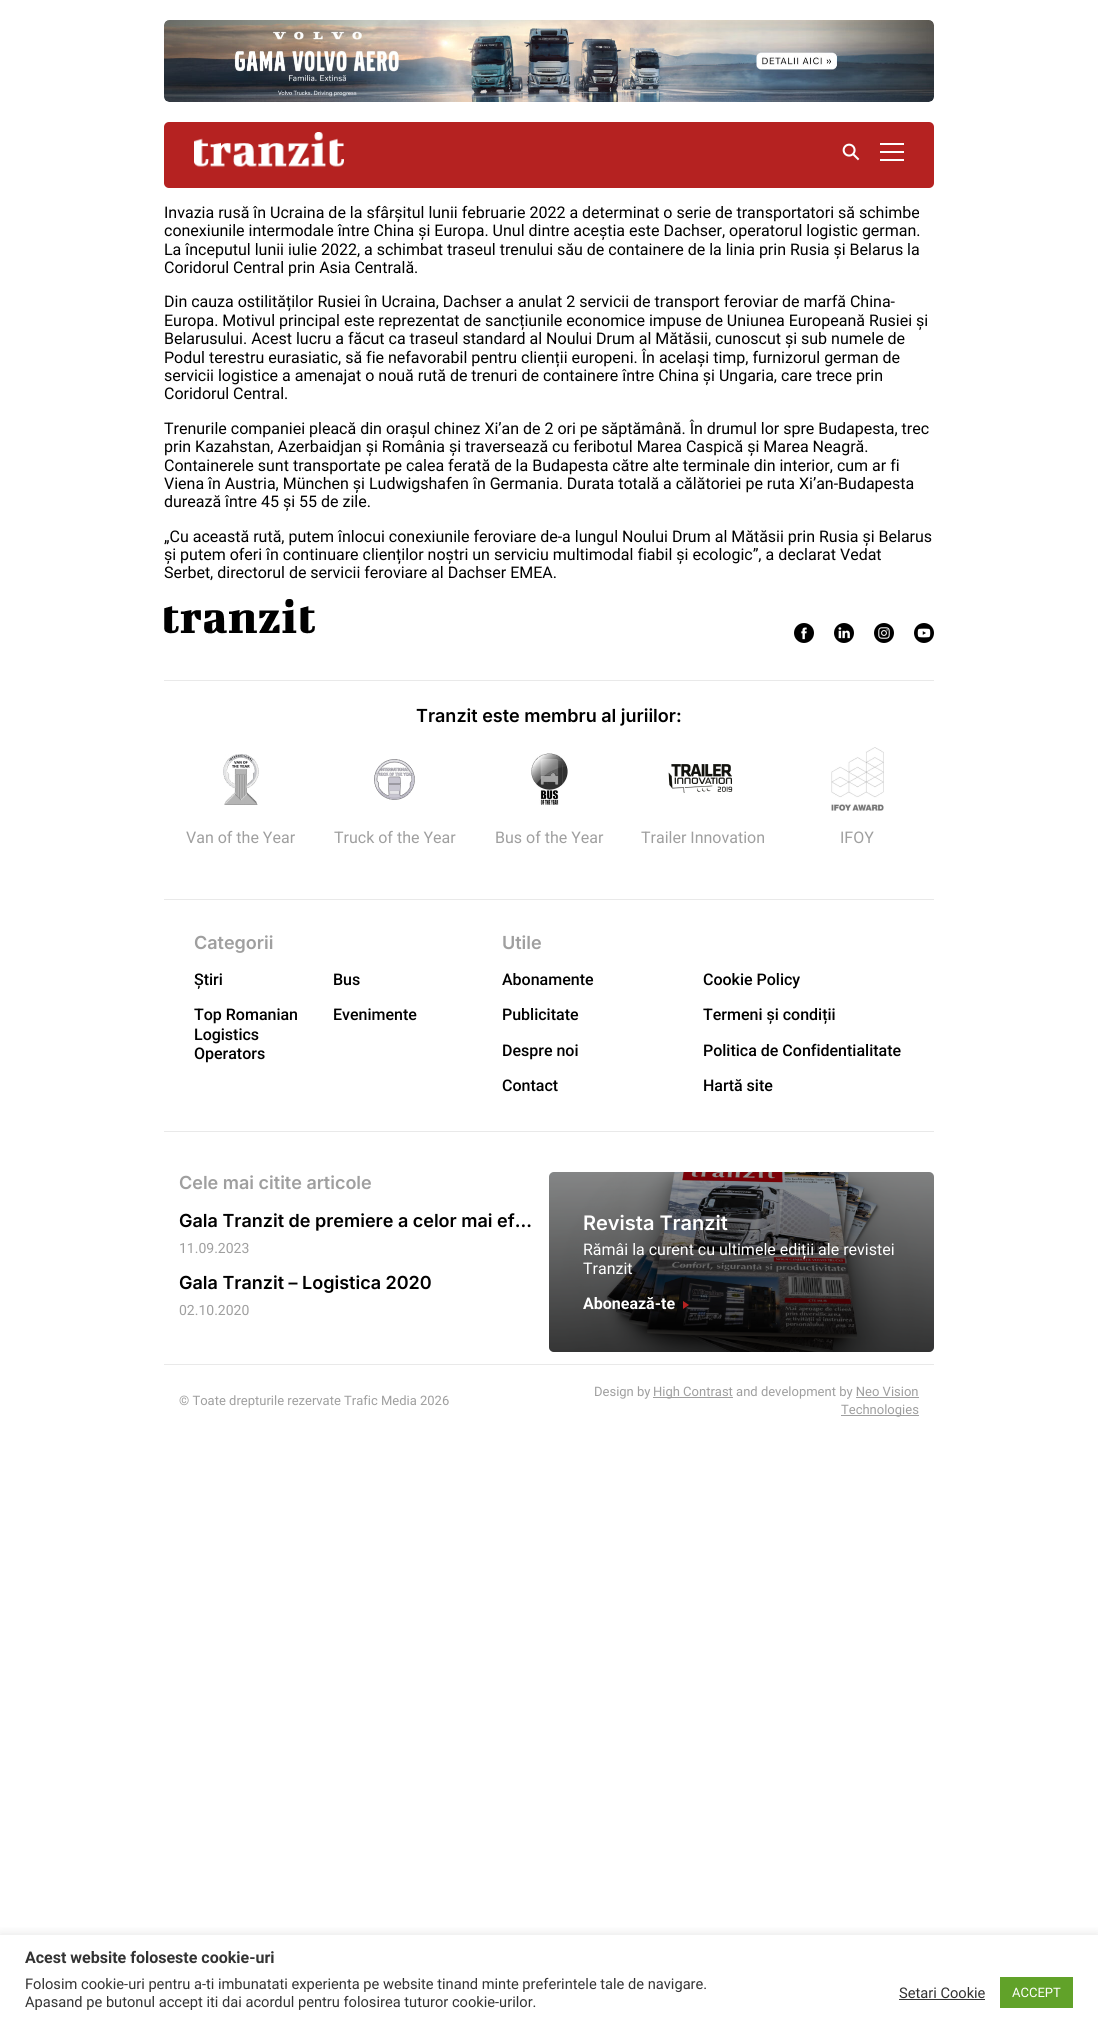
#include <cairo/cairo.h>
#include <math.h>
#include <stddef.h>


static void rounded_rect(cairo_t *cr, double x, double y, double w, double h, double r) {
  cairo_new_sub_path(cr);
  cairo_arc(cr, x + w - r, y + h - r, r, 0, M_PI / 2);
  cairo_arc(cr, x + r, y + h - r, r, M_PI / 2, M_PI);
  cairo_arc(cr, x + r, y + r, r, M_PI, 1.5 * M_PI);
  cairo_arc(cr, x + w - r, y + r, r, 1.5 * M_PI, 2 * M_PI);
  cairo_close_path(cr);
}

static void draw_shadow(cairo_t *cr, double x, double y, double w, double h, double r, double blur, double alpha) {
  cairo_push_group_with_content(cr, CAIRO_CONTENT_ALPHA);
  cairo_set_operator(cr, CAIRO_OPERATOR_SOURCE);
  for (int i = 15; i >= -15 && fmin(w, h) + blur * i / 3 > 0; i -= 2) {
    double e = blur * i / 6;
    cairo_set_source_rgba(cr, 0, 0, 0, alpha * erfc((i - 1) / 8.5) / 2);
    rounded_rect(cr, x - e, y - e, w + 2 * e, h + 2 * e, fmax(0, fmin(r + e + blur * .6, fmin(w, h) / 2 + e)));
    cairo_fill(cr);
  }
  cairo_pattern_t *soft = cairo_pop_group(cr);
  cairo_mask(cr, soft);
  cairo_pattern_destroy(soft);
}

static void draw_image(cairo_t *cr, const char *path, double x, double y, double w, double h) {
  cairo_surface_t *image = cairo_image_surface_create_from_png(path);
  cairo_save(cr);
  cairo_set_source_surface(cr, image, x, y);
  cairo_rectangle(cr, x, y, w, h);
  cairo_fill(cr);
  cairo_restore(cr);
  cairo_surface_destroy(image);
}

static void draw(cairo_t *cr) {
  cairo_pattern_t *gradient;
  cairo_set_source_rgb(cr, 1, 1, 1);
  cairo_paint(cr);
  draw_image(cr, "images/1.png", 164, 20, 770, 82);
  cairo_set_source_rgb(cr, 181 / 255.0, 34 / 255.0, 33 / 255.0);
  rounded_rect(cr, 164, 122, 770, 66, 5);
  cairo_fill(cr);
  draw_image(cr, "images/2.png", 194, 132, 150, 35);
  draw_image(cr, "images/3.png", 842, 143, 18, 18);
  cairo_set_source_rgb(cr, 1, 1, 1);
  cairo_rectangle(cr, 880, 143, 24, 2);
  cairo_fill(cr);
  cairo_rectangle(cr, 880, 151, 24, 2);
  cairo_fill(cr);
  cairo_rectangle(cr, 880, 159, 24, 2);
  cairo_fill(cr);
  cairo_set_source_rgb(cr, 233 / 255.0, 233 / 255.0, 233 / 255.0);
  cairo_rectangle(cr, 164, 680, 770, 1);
  cairo_fill(cr);
  draw_image(cr, "images/4.png", 164, 599, 151, 35);
  draw_image(cr, "images/5.png", 794, 623, 20, 20);
  draw_image(cr, "images/6.png", 834, 623, 20, 20);
  draw_image(cr, "images/7.png", 874, 623, 20, 20);
  draw_image(cr, "images/8.png", 914, 623, 20, 20);
  cairo_rectangle(cr, 164, 899, 770, 1);
  cairo_fill(cr);
  draw_image(cr, "images/9.png", 223, 754, 36, 51);
  draw_image(cr, "images/10.png", 374, 759, 41, 41);
  draw_image(cr, "images/11.png", 531, 753, 37, 52);
  draw_image(cr, "images/12.png", 668, 764, 65, 29);
  draw_image(cr, "images/13.png", 831, 747, 53, 64);
  cairo_rectangle(cr, 164, 1364, 770, 1);
  cairo_fill(cr);
  cairo_rectangle(cr, 164, 1131, 770, 1);
  cairo_fill(cr);
  draw_image(cr, "images/14.png", 549, 1172, 385, 180);
  gradient = cairo_pattern_create_linear(742, 1352, 742, 1172);
  cairo_pattern_add_color_stop_rgba(gradient, 0, 0, 0, 0, 0.6);
  cairo_pattern_add_color_stop_rgba(gradient, 1, 0, 0, 0, 0);
  cairo_set_source(cr, gradient);
  cairo_pattern_destroy(gradient);
  rounded_rect(cr, 549, 1172, 385, 180, 5);
  cairo_fill(cr);
  cairo_set_source_rgba(cr, 0, 0, 0, 0.4);
  rounded_rect(cr, 549, 1172, 385, 180, 5);
  cairo_fill(cr);
  cairo_set_source_rgb(cr, 181 / 255.0, 34 / 255.0, 33 / 255.0);
  cairo_new_path(cr);
  cairo_move_to(cr, 683, 1309);
  cairo_line_to(cr, 683, 1301);
  cairo_line_to(cr, 689, 1305);
  cairo_close_path(cr);
  cairo_fill(cr);
  cairo_set_source_rgb(cr, 159 / 255.0, 159 / 255.0, 159 / 255.0);
  cairo_rectangle(cr, 653, 1397, 80, 1);
  cairo_fill(cr);
  cairo_rectangle(cr, 856, 1397, 63, 1);
  cairo_fill(cr);
  cairo_rectangle(cr, 841, 1415, 78, 1);
  cairo_fill(cr);
  cairo_save(cr);
  cairo_rectangle(cr, 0, 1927, 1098, 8);
  cairo_clip(cr);
  cairo_set_source_rgb(cr, 172 / 255.0, 171 / 255.0, 171 / 255.0);
  draw_shadow(cr, 0, 1934, 1098, 92, 0, 5, 0.3);
  cairo_restore(cr);
  cairo_set_source_rgb(cr, 51 / 255.0, 51 / 255.0, 51 / 255.0);
  cairo_rectangle(cr, 899, 1999, 86, 1);
  cairo_fill(cr);
  cairo_set_source_rgb(cr, 97 / 255.0, 162 / 255.0, 41 / 255.0);
  cairo_rectangle(cr, 1000, 1977, 73, 31);
  cairo_fill(cr);
  cairo_select_font_face(cr, "Roboto", CAIRO_FONT_SLANT_NORMAL, CAIRO_FONT_WEIGHT_NORMAL);
  cairo_set_font_size(cr, 16);
  cairo_set_source_rgb(cr, 0, 0, 0);
  cairo_move_to(cr, 164, 218);
  cairo_show_text(cr, "Invazia rusă în Ucraina de la sfârșitul lunii februarie 2022 a determinat o serie de transportatori să schimbe");
  cairo_move_to(cr, 164, 236);
  cairo_show_text(cr, "conexiunile intermodale între China și Europa. Unul dintre aceștia este Dachser, operatorul logistic german.");
  cairo_move_to(cr, 164, 255);
  cairo_show_text(cr, "La începutul lunii iulie 2022, a schimbat traseul trenului său de containere de la linia prin Rusia și Belarus la");
  cairo_move_to(cr, 164, 273);
  cairo_show_text(cr, "Coridorul Central prin Asia Centrală.");
  cairo_move_to(cr, 164, 307);
  cairo_show_text(cr, "Din cauza ostilităților Rusiei în Ucraina, Dachser a anulat 2 servicii de transport feroviar de marfă China-");
  cairo_move_to(cr, 164, 326);
  cairo_show_text(cr, "Europa. Motivul principal este reprezentat de sancțiunile economice impuse de Uniunea Europeană Rusiei și");
  cairo_move_to(cr, 164, 344);
  cairo_show_text(cr, "Belarusului. Acest lucru a făcut ca traseul standard al Noului Drum al Mătăsii, cunoscut și sub numele de");
  cairo_move_to(cr, 164, 363);
  cairo_show_text(cr, "Podul terestru eurasiatic, să fie nefavorabil pentru clienții europeni. În același timp, furnizorul german de");
  cairo_move_to(cr, 164, 381);
  cairo_show_text(cr, "servicii logistice a amenajat o nouă rută de trenuri de containere între China și Ungaria, care trece prin");
  cairo_move_to(cr, 164, 399);
  cairo_show_text(cr, "Coridorul Central.");
  cairo_move_to(cr, 164, 434);
  cairo_show_text(cr, "Trenurile companiei pleacă din orașul chinez Xi’an de 2 ori pe săptămână. În drumul lor spre Budapesta, trec");
  cairo_move_to(cr, 164, 452);
  cairo_show_text(cr, "prin Kazahstan, Azerbaidjan și România și traversează cu feribotul Marea Caspică și Marea Neagră.");
  cairo_move_to(cr, 164, 471);
  cairo_show_text(cr, "Containerele sunt transportate pe calea ferată de la Budapesta către alte terminale din interior, cum ar fi");
  cairo_move_to(cr, 164, 489);
  cairo_show_text(cr, "Viena în Austria, München și Ludwigshafen în Germania. Durata totală a călătoriei pe ruta Xi’an-Budapesta");
  cairo_move_to(cr, 164, 507);
  cairo_show_text(cr, "durează între 45 și 55 de zile.");
  cairo_move_to(cr, 164, 542);
  cairo_show_text(cr, "„Cu această rută, putem înlocui conexiunile feroviare de-a lungul Noului Drum al Mătăsii prin Rusia și Belarus");
  cairo_move_to(cr, 164, 560);
  cairo_show_text(cr, "și putem oferi în continuare clienților noștri un serviciu multimodal fiabil și ecologic”, a declarat Vedat");
  cairo_move_to(cr, 164, 578);
  cairo_show_text(cr, "Serbet, directorul de servicii feroviare al Dachser EMEA.");
  cairo_select_font_face(cr, "Inter SemiBold", CAIRO_FONT_SLANT_NORMAL, CAIRO_FONT_WEIGHT_NORMAL);
  cairo_set_font_size(cr, 18);
  cairo_move_to(cr, 416, 722);
  cairo_show_text(cr, "Tranzit este membru al juriilor:");
  cairo_select_font_face(cr, "Roboto", CAIRO_FONT_SLANT_NORMAL, CAIRO_FONT_WEIGHT_NORMAL);
  cairo_set_font_size(cr, 16);
  cairo_set_source_rgb(cr, 159 / 255.0, 159 / 255.0, 159 / 255.0);
  cairo_move_to(cr, 186, 843);
  cairo_show_text(cr, "Van of the Year");
  cairo_move_to(cr, 334, 843);
  cairo_show_text(cr, "Truck of the Year");
  cairo_move_to(cr, 495, 843);
  cairo_show_text(cr, "Bus of the Year");
  cairo_move_to(cr, 641, 843);
  cairo_show_text(cr, "Trailer Innovation");
  cairo_move_to(cr, 840, 843);
  cairo_show_text(cr, "IFOY");
  cairo_select_font_face(cr, "Inter SemiBold", CAIRO_FONT_SLANT_NORMAL, CAIRO_FONT_WEIGHT_NORMAL);
  cairo_set_font_size(cr, 18);
  cairo_move_to(cr, 194, 949);
  cairo_show_text(cr, "Categorii");
  cairo_select_font_face(cr, "Roboto Medium", CAIRO_FONT_SLANT_NORMAL, CAIRO_FONT_WEIGHT_NORMAL);
  cairo_set_font_size(cr, 16);
  cairo_set_source_rgb(cr, 0, 0, 0);
  cairo_move_to(cr, 194, 985);
  cairo_show_text(cr, "Știri");
  cairo_move_to(cr, 333, 985);
  cairo_show_text(cr, "Bus");
  cairo_move_to(cr, 194, 1020);
  cairo_show_text(cr, "Top Romanian");
  cairo_move_to(cr, 194, 1040);
  cairo_show_text(cr, "Logistics");
  cairo_move_to(cr, 194, 1059);
  cairo_show_text(cr, "Operators");
  cairo_move_to(cr, 333, 1020);
  cairo_show_text(cr, "Evenimente");
  cairo_select_font_face(cr, "Inter SemiBold", CAIRO_FONT_SLANT_NORMAL, CAIRO_FONT_WEIGHT_NORMAL);
  cairo_set_font_size(cr, 18);
  cairo_set_source_rgb(cr, 159 / 255.0, 159 / 255.0, 159 / 255.0);
  cairo_move_to(cr, 502, 949);
  cairo_show_text(cr, "Utile");
  cairo_select_font_face(cr, "Roboto Medium", CAIRO_FONT_SLANT_NORMAL, CAIRO_FONT_WEIGHT_NORMAL);
  cairo_set_font_size(cr, 16);
  cairo_set_source_rgb(cr, 0, 0, 0);
  cairo_move_to(cr, 502, 985);
  cairo_show_text(cr, "Abonamente");
  cairo_move_to(cr, 703, 985);
  cairo_show_text(cr, "Cookie Policy");
  cairo_move_to(cr, 502, 1020);
  cairo_show_text(cr, "Publicitate");
  cairo_move_to(cr, 703, 1020);
  cairo_show_text(cr, "Termeni și condiții");
  cairo_move_to(cr, 502, 1056);
  cairo_show_text(cr, "Despre noi");
  cairo_move_to(cr, 703, 1056);
  cairo_show_text(cr, "Politica de Confidentialitate");
  cairo_move_to(cr, 502, 1091);
  cairo_show_text(cr, "Contact");
  cairo_move_to(cr, 703, 1091);
  cairo_show_text(cr, "Hartă site");
  cairo_select_font_face(cr, "Inter SemiBold", CAIRO_FONT_SLANT_NORMAL, CAIRO_FONT_WEIGHT_NORMAL);
  cairo_set_font_size(cr, 18);
  cairo_set_source_rgb(cr, 159 / 255.0, 159 / 255.0, 159 / 255.0);
  cairo_move_to(cr, 179, 1189);
  cairo_show_text(cr, "Cele mai citite articole");
  cairo_set_source_rgb(cr, 0, 0, 0);
  cairo_move_to(cr, 179, 1227);
  cairo_show_text(cr, "Gala Tranzit de premiere a celor mai ef…");
  cairo_select_font_face(cr, "Roboto", CAIRO_FONT_SLANT_NORMAL, CAIRO_FONT_WEIGHT_NORMAL);
  cairo_set_font_size(cr, 14);
  cairo_set_source_rgb(cr, 159 / 255.0, 159 / 255.0, 159 / 255.0);
  cairo_move_to(cr, 179, 1253);
  cairo_show_text(cr, "11.09.2023");
  cairo_select_font_face(cr, "Inter SemiBold", CAIRO_FONT_SLANT_NORMAL, CAIRO_FONT_WEIGHT_NORMAL);
  cairo_set_font_size(cr, 18);
  cairo_set_source_rgb(cr, 0, 0, 0);
  cairo_move_to(cr, 179, 1289);
  cairo_show_text(cr, "Gala Tranzit – Logistica 2020");
  cairo_select_font_face(cr, "Roboto", CAIRO_FONT_SLANT_NORMAL, CAIRO_FONT_WEIGHT_NORMAL);
  cairo_set_font_size(cr, 14);
  cairo_set_source_rgb(cr, 159 / 255.0, 159 / 255.0, 159 / 255.0);
  cairo_move_to(cr, 179, 1315);
  cairo_show_text(cr, "02.10.2020");
  cairo_select_font_face(cr, "Inter SemiBold", CAIRO_FONT_SLANT_NORMAL, CAIRO_FONT_WEIGHT_NORMAL);
  cairo_set_font_size(cr, 20);
  cairo_set_source_rgb(cr, 1, 1, 1);
  cairo_move_to(cr, 583, 1230);
  cairo_show_text(cr, "Revista Tranzit");
  cairo_select_font_face(cr, "Roboto", CAIRO_FONT_SLANT_NORMAL, CAIRO_FONT_WEIGHT_NORMAL);
  cairo_set_font_size(cr, 16);
  cairo_move_to(cr, 583, 1255);
  cairo_show_text(cr, "Rămâi la curent cu ultimele ediții ale revistei");
  cairo_move_to(cr, 583, 1274);
  cairo_show_text(cr, "Tranzit");
  cairo_select_font_face(cr, "Roboto", CAIRO_FONT_SLANT_NORMAL, CAIRO_FONT_WEIGHT_BOLD);
  cairo_move_to(cr, 583, 1309);
  cairo_show_text(cr, "Abonează-te");
  cairo_select_font_face(cr, "Roboto", CAIRO_FONT_SLANT_NORMAL, CAIRO_FONT_WEIGHT_NORMAL);
  cairo_set_font_size(cr, 13);
  cairo_set_source_rgb(cr, 159 / 255.0, 159 / 255.0, 159 / 255.0);
  cairo_move_to(cr, 179, 1405);
  cairo_show_text(cr, "© Toate drepturile rezervate Trafic Media 2026");
  cairo_move_to(cr, 594, 1396);
  cairo_show_text(cr, "Design by");
  cairo_move_to(cr, 653, 1396);
  cairo_show_text(cr, "High Contrast and development by Neo Vision");
  cairo_move_to(cr, 841, 1414);
  cairo_show_text(cr, "Technologies");
  cairo_select_font_face(cr, "Roboto", CAIRO_FONT_SLANT_NORMAL, CAIRO_FONT_WEIGHT_BOLD);
  cairo_set_font_size(cr, 16);
  cairo_set_source_rgb(cr, 51 / 255.0, 51 / 255.0, 51 / 255.0);
  cairo_move_to(cr, 25, 1963);
  cairo_show_text(cr, "Acest website foloseste cookie-uri");
  cairo_select_font_face(cr, "Roboto", CAIRO_FONT_SLANT_NORMAL, CAIRO_FONT_WEIGHT_NORMAL);
  cairo_set_font_size(cr, 14.65);
  cairo_move_to(cr, 25, 1989);
  cairo_show_text(cr, "Folosim cookie-uri pentru a-ti imbunatati experienta pe website tinand minte preferintele tale de navigare.");
  cairo_move_to(cr, 25, 2007);
  cairo_show_text(cr, "Apasand pe butonul accept iti dai acordul pentru folosirea tuturor cookie-urilor.");
  cairo_move_to(cr, 899, 1998);
  cairo_show_text(cr, "Setari Cookie");
  cairo_set_font_size(cr, 13);
  cairo_set_source_rgb(cr, 1, 1, 1);
  cairo_move_to(cr, 1012, 1997);
  cairo_show_text(cr, "ACCEPT");
}

int main(void) {
  cairo_surface_t *surface = cairo_image_surface_create(CAIRO_FORMAT_RGB24, 1098, 2027);
  cairo_t *cr = cairo_create(surface);
  cairo_font_options_t *options = cairo_font_options_create();
  cairo_font_options_set_hint_metrics(options, CAIRO_HINT_METRICS_OFF);
  cairo_font_options_set_hint_style(options, CAIRO_HINT_STYLE_NONE);
  cairo_set_font_options(cr, options);
  cairo_set_miter_limit(cr, 4);
  draw(cr);
  cairo_surface_write_to_png(surface, "out.png");
  cairo_font_options_destroy(options);
  cairo_destroy(cr);
  cairo_surface_destroy(surface);
  return 0;
}
